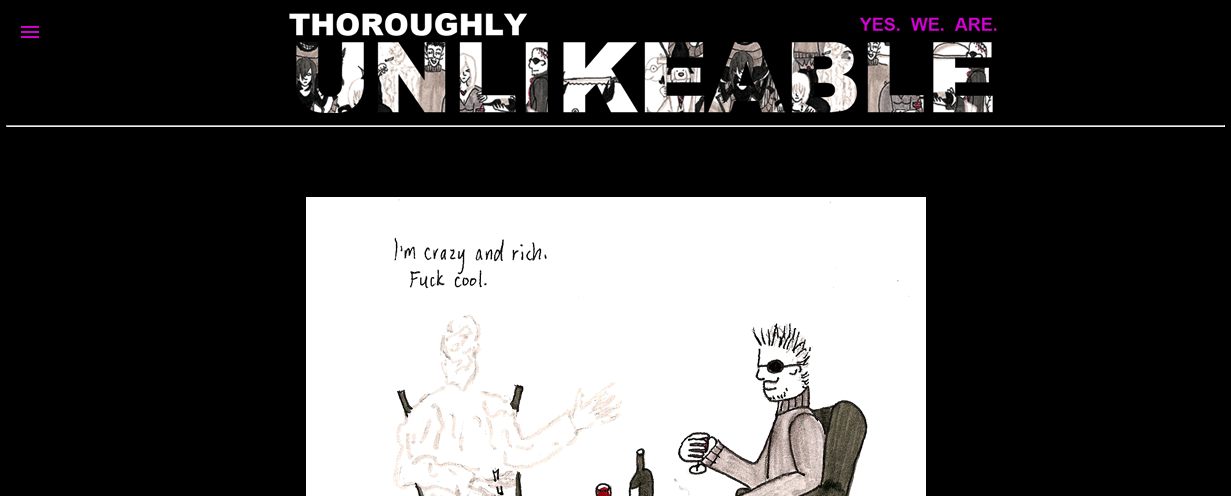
#include <cairo/cairo.h>
#include <math.h>
#include <stddef.h>


static void draw_image(cairo_t *cr, const char *path, double x, double y, double w, double h) {
  cairo_surface_t *image = cairo_image_surface_create_from_png(path);
  cairo_save(cr);
  cairo_set_source_surface(cr, image, x, y);
  cairo_rectangle(cr, x, y, w, h);
  cairo_fill(cr);
  cairo_restore(cr);
  cairo_surface_destroy(image);
}

static void draw(cairo_t *cr) {
  cairo_set_source_rgb(cr, 0, 0, 0);
  cairo_paint(cr);
  draw_image(cr, "images/1.png", 21, 26, 18, 12);
  draw_image(cr, "images/2.png", 289, 13, 709, 100);
  cairo_set_source_rgb(cr, 159 / 255.0, 159 / 255.0, 159 / 255.0);
  cairo_rectangle(cr, 6, 125, 1219, 1);
  cairo_fill(cr);
  cairo_set_source_rgb(cr, 238 / 255.0, 238 / 255.0, 238 / 255.0);
  cairo_rectangle(cr, 1224, 125, 1, 2);
  cairo_fill(cr);
  cairo_rectangle(cr, 6, 126, 1219, 1);
  cairo_fill(cr);
  cairo_set_source_rgb(cr, 159 / 255.0, 159 / 255.0, 159 / 255.0);
  cairo_rectangle(cr, 6, 125, 1, 2);
  cairo_fill(cr);
  draw_image(cr, "images/3.png", 306, 197, 620, 299);
}

int main(void) {
  cairo_surface_t *surface = cairo_image_surface_create(CAIRO_FORMAT_RGB24, 1231, 496);
  cairo_t *cr = cairo_create(surface);
  cairo_font_options_t *options = cairo_font_options_create();
  cairo_font_options_set_hint_metrics(options, CAIRO_HINT_METRICS_OFF);
  cairo_font_options_set_hint_style(options, CAIRO_HINT_STYLE_NONE);
  cairo_set_font_options(cr, options);
  cairo_set_miter_limit(cr, 4);
  draw(cr);
  cairo_surface_write_to_png(surface, "out.png");
  cairo_font_options_destroy(options);
  cairo_destroy(cr);
  cairo_surface_destroy(surface);
  return 0;
}
